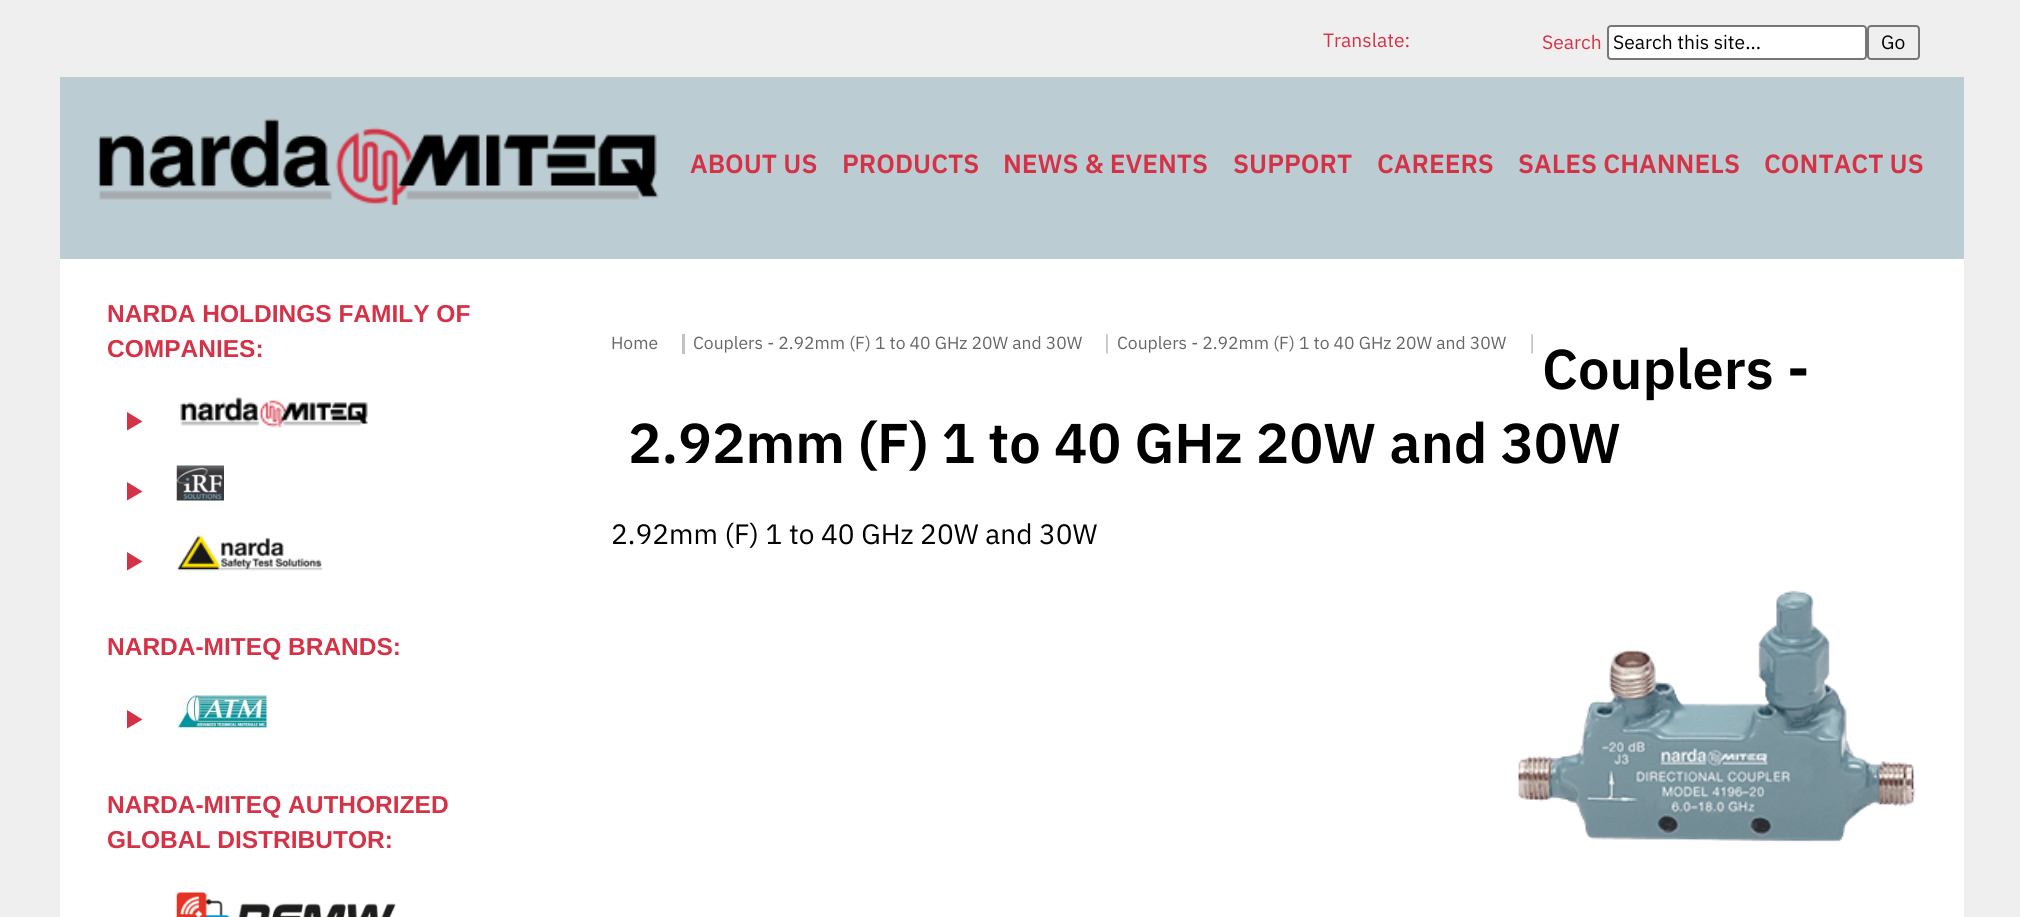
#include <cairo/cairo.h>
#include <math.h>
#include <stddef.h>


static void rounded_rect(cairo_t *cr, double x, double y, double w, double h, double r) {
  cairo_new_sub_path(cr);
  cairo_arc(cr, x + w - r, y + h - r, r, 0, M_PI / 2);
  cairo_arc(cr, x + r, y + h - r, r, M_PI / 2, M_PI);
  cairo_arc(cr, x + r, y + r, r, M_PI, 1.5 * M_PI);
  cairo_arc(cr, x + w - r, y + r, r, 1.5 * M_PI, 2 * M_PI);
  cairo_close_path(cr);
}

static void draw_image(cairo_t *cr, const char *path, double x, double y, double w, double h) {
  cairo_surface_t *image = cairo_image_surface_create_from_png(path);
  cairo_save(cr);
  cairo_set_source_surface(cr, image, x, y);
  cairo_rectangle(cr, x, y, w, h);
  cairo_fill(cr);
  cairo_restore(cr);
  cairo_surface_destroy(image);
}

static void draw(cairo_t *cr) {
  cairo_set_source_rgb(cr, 239 / 255.0, 239 / 255.0, 239 / 255.0);
  cairo_paint(cr);
  cairo_set_source_rgb(cr, 1, 1, 1);
  rounded_rect(cr, 1608, 26, 258, 33, 3);
  cairo_fill_preserve(cr);
  cairo_set_source_rgb(cr, 118 / 255.0, 118 / 255.0, 118 / 255.0);
  cairo_stroke(cr);
  rounded_rect(cr, 1868, 26, 51, 33, 3);
  cairo_stroke(cr);
  cairo_set_source_rgb(cr, 187 / 255.0, 205 / 255.0, 210 / 255.0);
  cairo_rectangle(cr, 60, 77, 1904, 182);
  cairo_fill(cr);
  draw_image(cr, "images/1.png", 98, 118, 561, 88);
  cairo_set_source_rgb(cr, 1, 1, 1);
  cairo_rectangle(cr, 60, 259, 1904, 658);
  cairo_fill(cr);
  cairo_set_source_rgb(cr, 212 / 255.0, 50 / 255.0, 70 / 255.0);
  cairo_new_path(cr);
  cairo_move_to(cr, 127, 412);
  cairo_line_to(cr, 142.5, 421.5);
  cairo_line_to(cr, 127, 430.5);
  cairo_close_path(cr);
  cairo_fill(cr);
  draw_image(cr, "images/2.png", 180, 397, 188, 31);
  cairo_new_path(cr);
  cairo_move_to(cr, 127, 482);
  cairo_line_to(cr, 142.5, 491.5);
  cairo_line_to(cr, 127, 500.5);
  cairo_close_path(cr);
  cairo_fill(cr);
  draw_image(cr, "images/3.png", 176, 465, 48, 36);
  cairo_new_path(cr);
  cairo_move_to(cr, 127, 552);
  cairo_line_to(cr, 142.5, 561.5);
  cairo_line_to(cr, 127, 570.5);
  cairo_close_path(cr);
  cairo_fill(cr);
  draw_image(cr, "images/4.png", 176, 535, 147, 36);
  cairo_new_path(cr);
  cairo_move_to(cr, 127, 710);
  cairo_line_to(cr, 142.5, 719.5);
  cairo_line_to(cr, 127, 728.5);
  cairo_close_path(cr);
  cairo_fill(cr);
  draw_image(cr, "images/5.png", 177, 694, 91, 36);
  draw_image(cr, "images/6.png", 176, 892, 220, 25);
  cairo_set_source_rgb(cr, 195 / 255.0, 195 / 255.0, 195 / 255.0);
  cairo_rectangle(cr, 682, 334, 3, 20);
  cairo_fill(cr);
  draw_image(cr, "images/7.png", 1106, 334, 2, 20);
  draw_image(cr, "images/8.png", 1531, 334, 2, 20);
  draw_image(cr, "images/9.png", 1518, 590, 398, 252);
  cairo_select_font_face(cr, "IBM Plex Sans", CAIRO_FONT_SLANT_NORMAL, CAIRO_FONT_WEIGHT_NORMAL);
  cairo_set_font_size(cr, 19.25);
  cairo_set_source_rgb(cr, 212 / 255.0, 50 / 255.0, 70 / 255.0);
  cairo_move_to(cr, 1323, 47);
  cairo_show_text(cr, "Translate:");
  cairo_move_to(cr, 1542, 49);
  cairo_show_text(cr, "Search");
  cairo_set_source_rgb(cr, 0, 0, 0);
  cairo_move_to(cr, 1613, 49);
  cairo_show_text(cr, "Search this site...");
  cairo_move_to(cr, 1881, 49);
  cairo_show_text(cr, "Go");
  cairo_select_font_face(cr, "IBM Plex Sans SemiBold", CAIRO_FONT_SLANT_NORMAL, CAIRO_FONT_WEIGHT_NORMAL);
  cairo_set_font_size(cr, 26.25);
  cairo_set_source_rgb(cr, 212 / 255.0, 50 / 255.0, 70 / 255.0);
  cairo_move_to(cr, 690, 173);
  cairo_show_text(cr, "ABOUT US");
  cairo_move_to(cr, 842, 173);
  cairo_show_text(cr, "PRODUCTS");
  cairo_move_to(cr, 1003, 173);
  cairo_show_text(cr, "NEWS & EVENTS");
  cairo_move_to(cr, 1233, 173);
  cairo_show_text(cr, "SUPPORT");
  cairo_move_to(cr, 1377, 173);
  cairo_show_text(cr, "CAREERS");
  cairo_move_to(cr, 1518, 173);
  cairo_show_text(cr, "SALES CHANNELS");
  cairo_move_to(cr, 1764, 173);
  cairo_show_text(cr, "CONTACT US");
  cairo_select_font_face(cr, "Liberation Sans", CAIRO_FONT_SLANT_NORMAL, CAIRO_FONT_WEIGHT_BOLD);
  cairo_set_font_size(cr, 24.5);
  cairo_move_to(cr, 107, 322);
  cairo_show_text(cr, "NARDA HOLDINGS FAMILY OF");
  cairo_move_to(cr, 107, 357);
  cairo_show_text(cr, "COMPANIES:");
  cairo_move_to(cr, 107, 655);
  cairo_show_text(cr, "NARDA-MITEQ BRANDS:");
  cairo_move_to(cr, 107, 813);
  cairo_show_text(cr, "NARDA-MITEQ AUTHORIZED");
  cairo_move_to(cr, 107, 848);
  cairo_show_text(cr, "GLOBAL DISTRIBUTOR:");
  cairo_select_font_face(cr, "IBM Plex Sans", CAIRO_FONT_SLANT_NORMAL, CAIRO_FONT_WEIGHT_NORMAL);
  cairo_set_font_size(cr, 17.5);
  cairo_set_source_rgb(cr, 102 / 255.0, 102 / 255.0, 102 / 255.0);
  cairo_move_to(cr, 611, 349);
  cairo_show_text(cr, "Home");
  cairo_move_to(cr, 693, 349);
  cairo_show_text(cr, "Couplers - 2.92mm (F) 1 to 40 GHz 20W and 30W");
  cairo_move_to(cr, 1117, 349);
  cairo_show_text(cr, "Couplers - 2.92mm (F) 1 to 40 GHz 20W and 30W");
  cairo_select_font_face(cr, "IBM Plex Sans SemiBold", CAIRO_FONT_SLANT_NORMAL, CAIRO_FONT_WEIGHT_NORMAL);
  cairo_set_font_size(cr, 56);
  cairo_set_source_rgb(cr, 0, 0, 0);
  cairo_move_to(cr, 1542, 389);
  cairo_show_text(cr, "Couplers -");
  cairo_move_to(cr, 628, 463);
  cairo_show_text(cr, "2.92mm (F) 1 to 40 GHz 20W and 30W");
  cairo_select_font_face(cr, "IBM Plex Sans", CAIRO_FONT_SLANT_NORMAL, CAIRO_FONT_WEIGHT_NORMAL);
  cairo_set_font_size(cr, 28);
  cairo_move_to(cr, 611, 544);
  cairo_show_text(cr, "2.92mm (F) 1 to 40 GHz 20W and 30W");
}

int main(void) {
  cairo_surface_t *surface = cairo_image_surface_create(CAIRO_FORMAT_RGB24, 2020, 917);
  cairo_t *cr = cairo_create(surface);
  cairo_font_options_t *options = cairo_font_options_create();
  cairo_font_options_set_hint_metrics(options, CAIRO_HINT_METRICS_OFF);
  cairo_font_options_set_hint_style(options, CAIRO_HINT_STYLE_NONE);
  cairo_set_font_options(cr, options);
  cairo_set_miter_limit(cr, 4);
  draw(cr);
  cairo_surface_write_to_png(surface, "out.png");
  cairo_font_options_destroy(options);
  cairo_destroy(cr);
  cairo_surface_destroy(surface);
  return 0;
}
